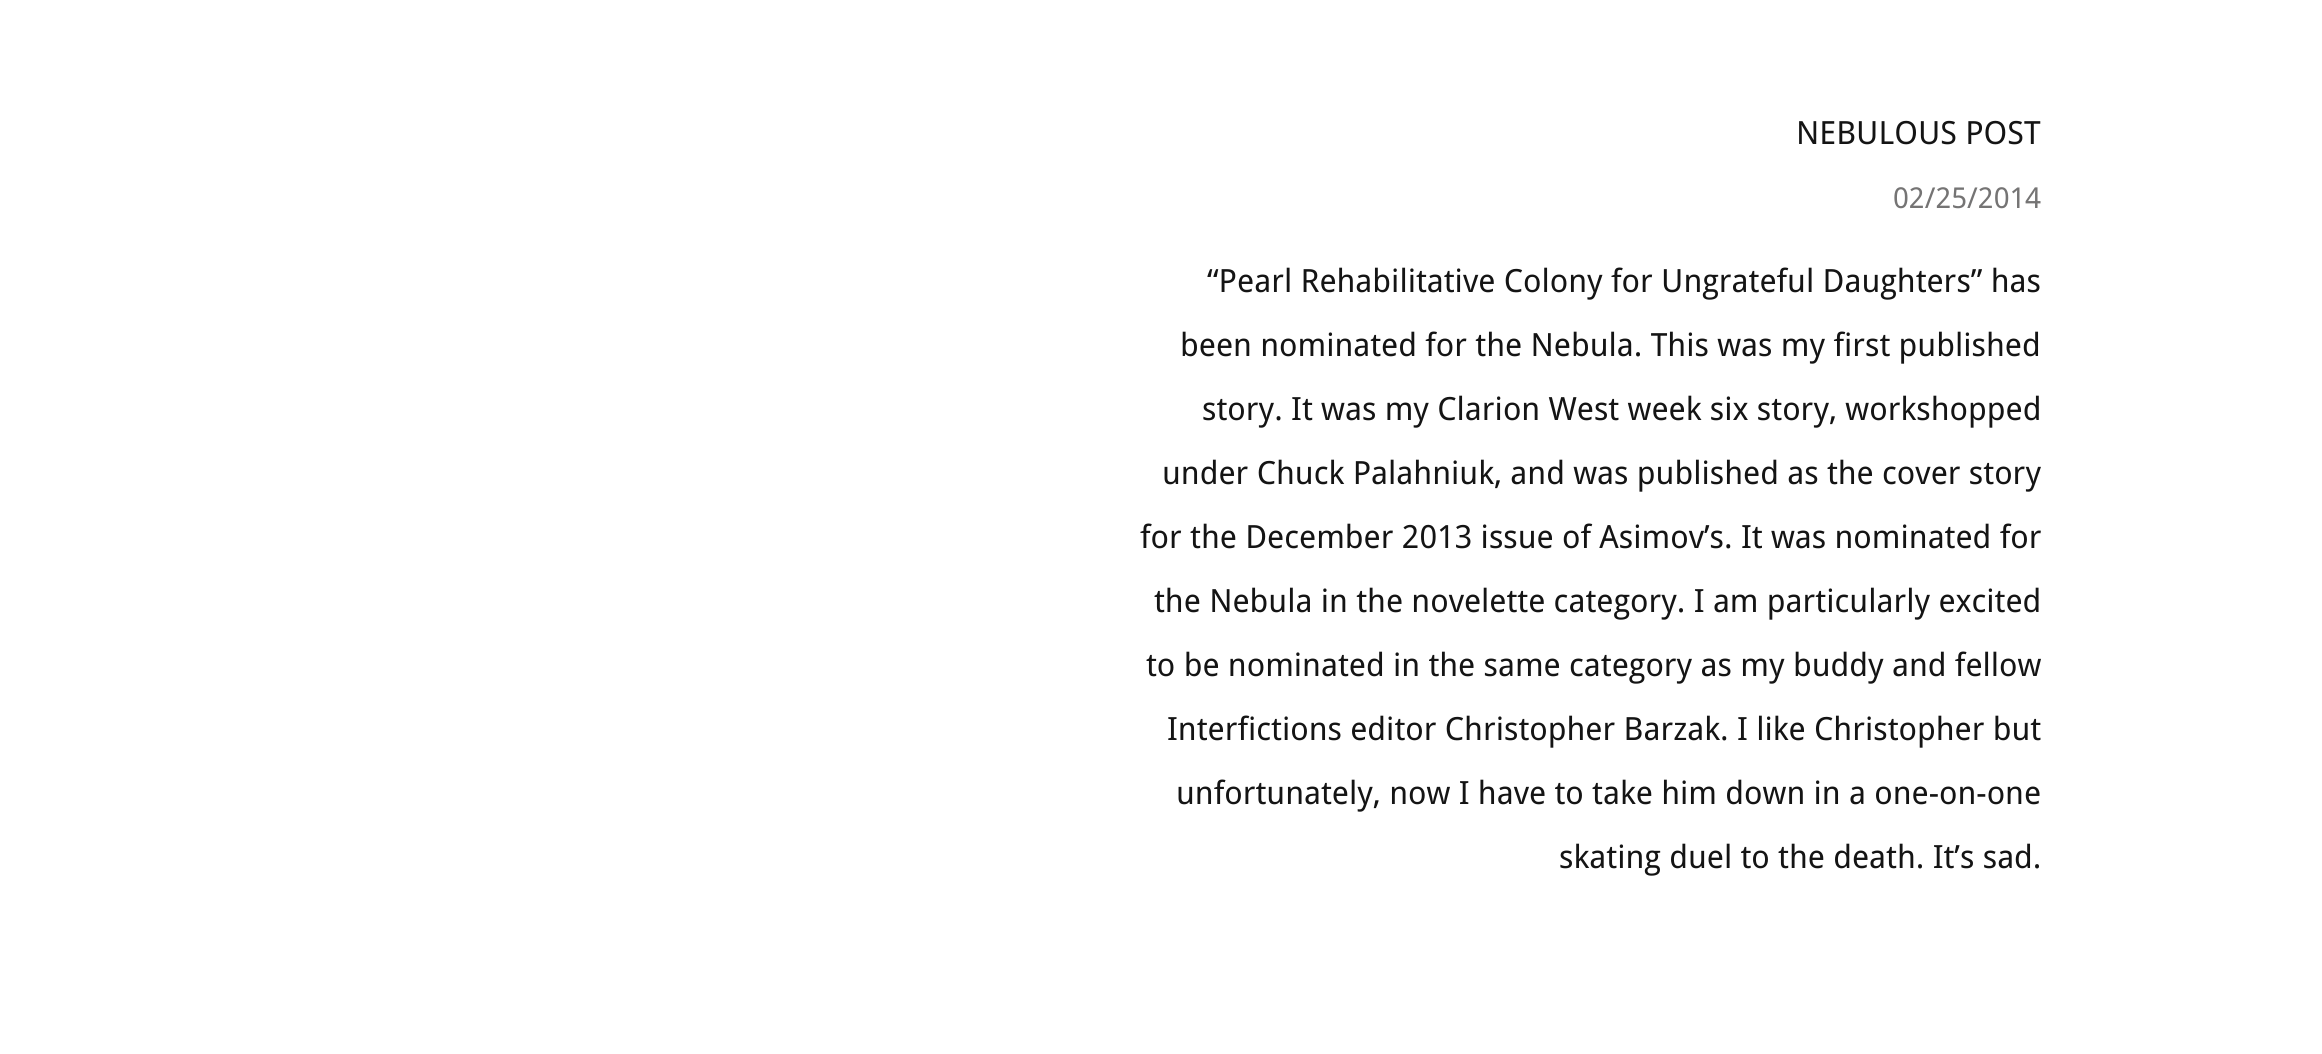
#include <cairo/cairo.h>
#include <math.h>
#include <stddef.h>


static void draw(cairo_t *cr) {
  cairo_set_source_rgb(cr, 1, 1, 1);
  cairo_paint(cr);
  cairo_select_font_face(cr, "Droid Sans", CAIRO_FONT_SLANT_NORMAL, CAIRO_FONT_WEIGHT_NORMAL);
  cairo_set_font_size(cr, 32);
  cairo_set_source_rgb(cr, 20 / 255.0, 20 / 255.0, 20 / 255.0);
  cairo_move_to(cr, 1796, 144);
  cairo_show_text(cr, "NEBULOUS POST");
  cairo_set_font_size(cr, 28.75);
  cairo_set_source_rgb(cr, 117 / 255.0, 116 / 255.0, 116 / 255.0);
  cairo_move_to(cr, 1893, 208);
  cairo_show_text(cr, "02/25/2014");
  cairo_set_font_size(cr, 32);
  cairo_set_source_rgb(cr, 20 / 255.0, 20 / 255.0, 20 / 255.0);
  cairo_move_to(cr, 1207, 292);
  cairo_show_text(cr, "“Pearl Rehabilitative Colony for Ungrateful Daughters” has");
  cairo_move_to(cr, 1180, 356);
  cairo_show_text(cr, "been nominated for the Nebula. This was my first published");
  cairo_move_to(cr, 1202, 420);
  cairo_show_text(cr, "story. It was my Clarion West week six story, workshopped");
  cairo_move_to(cr, 1162, 484);
  cairo_show_text(cr, "under Chuck Palahniuk, and was published as the cover story");
  cairo_move_to(cr, 1140, 548);
  cairo_show_text(cr, "for the December 2013 issue of Asimov’s. It was nominated for");
  cairo_move_to(cr, 1154, 612);
  cairo_show_text(cr, "the Nebula in the novelette category. I am particularly excited");
  cairo_move_to(cr, 1146, 676);
  cairo_show_text(cr, "to be nominated in the same category as my buddy and fellow");
  cairo_move_to(cr, 1167, 740);
  cairo_show_text(cr, "Interfictions editor Christopher Barzak. I like Christopher but");
  cairo_move_to(cr, 1176, 804);
  cairo_show_text(cr, "unfortunately, now I have to take him down in a one-on-one");
  cairo_move_to(cr, 1559, 868);
  cairo_show_text(cr, "skating duel to the death. It’s sad.");
}

int main(void) {
  cairo_surface_t *surface = cairo_image_surface_create(CAIRO_FORMAT_RGB24, 2322, 1054);
  cairo_t *cr = cairo_create(surface);
  cairo_font_options_t *options = cairo_font_options_create();
  cairo_font_options_set_hint_metrics(options, CAIRO_HINT_METRICS_OFF);
  cairo_font_options_set_hint_style(options, CAIRO_HINT_STYLE_NONE);
  cairo_set_font_options(cr, options);
  cairo_set_miter_limit(cr, 4);
  draw(cr);
  cairo_surface_write_to_png(surface, "out.png");
  cairo_font_options_destroy(options);
  cairo_destroy(cr);
  cairo_surface_destroy(surface);
  return 0;
}
